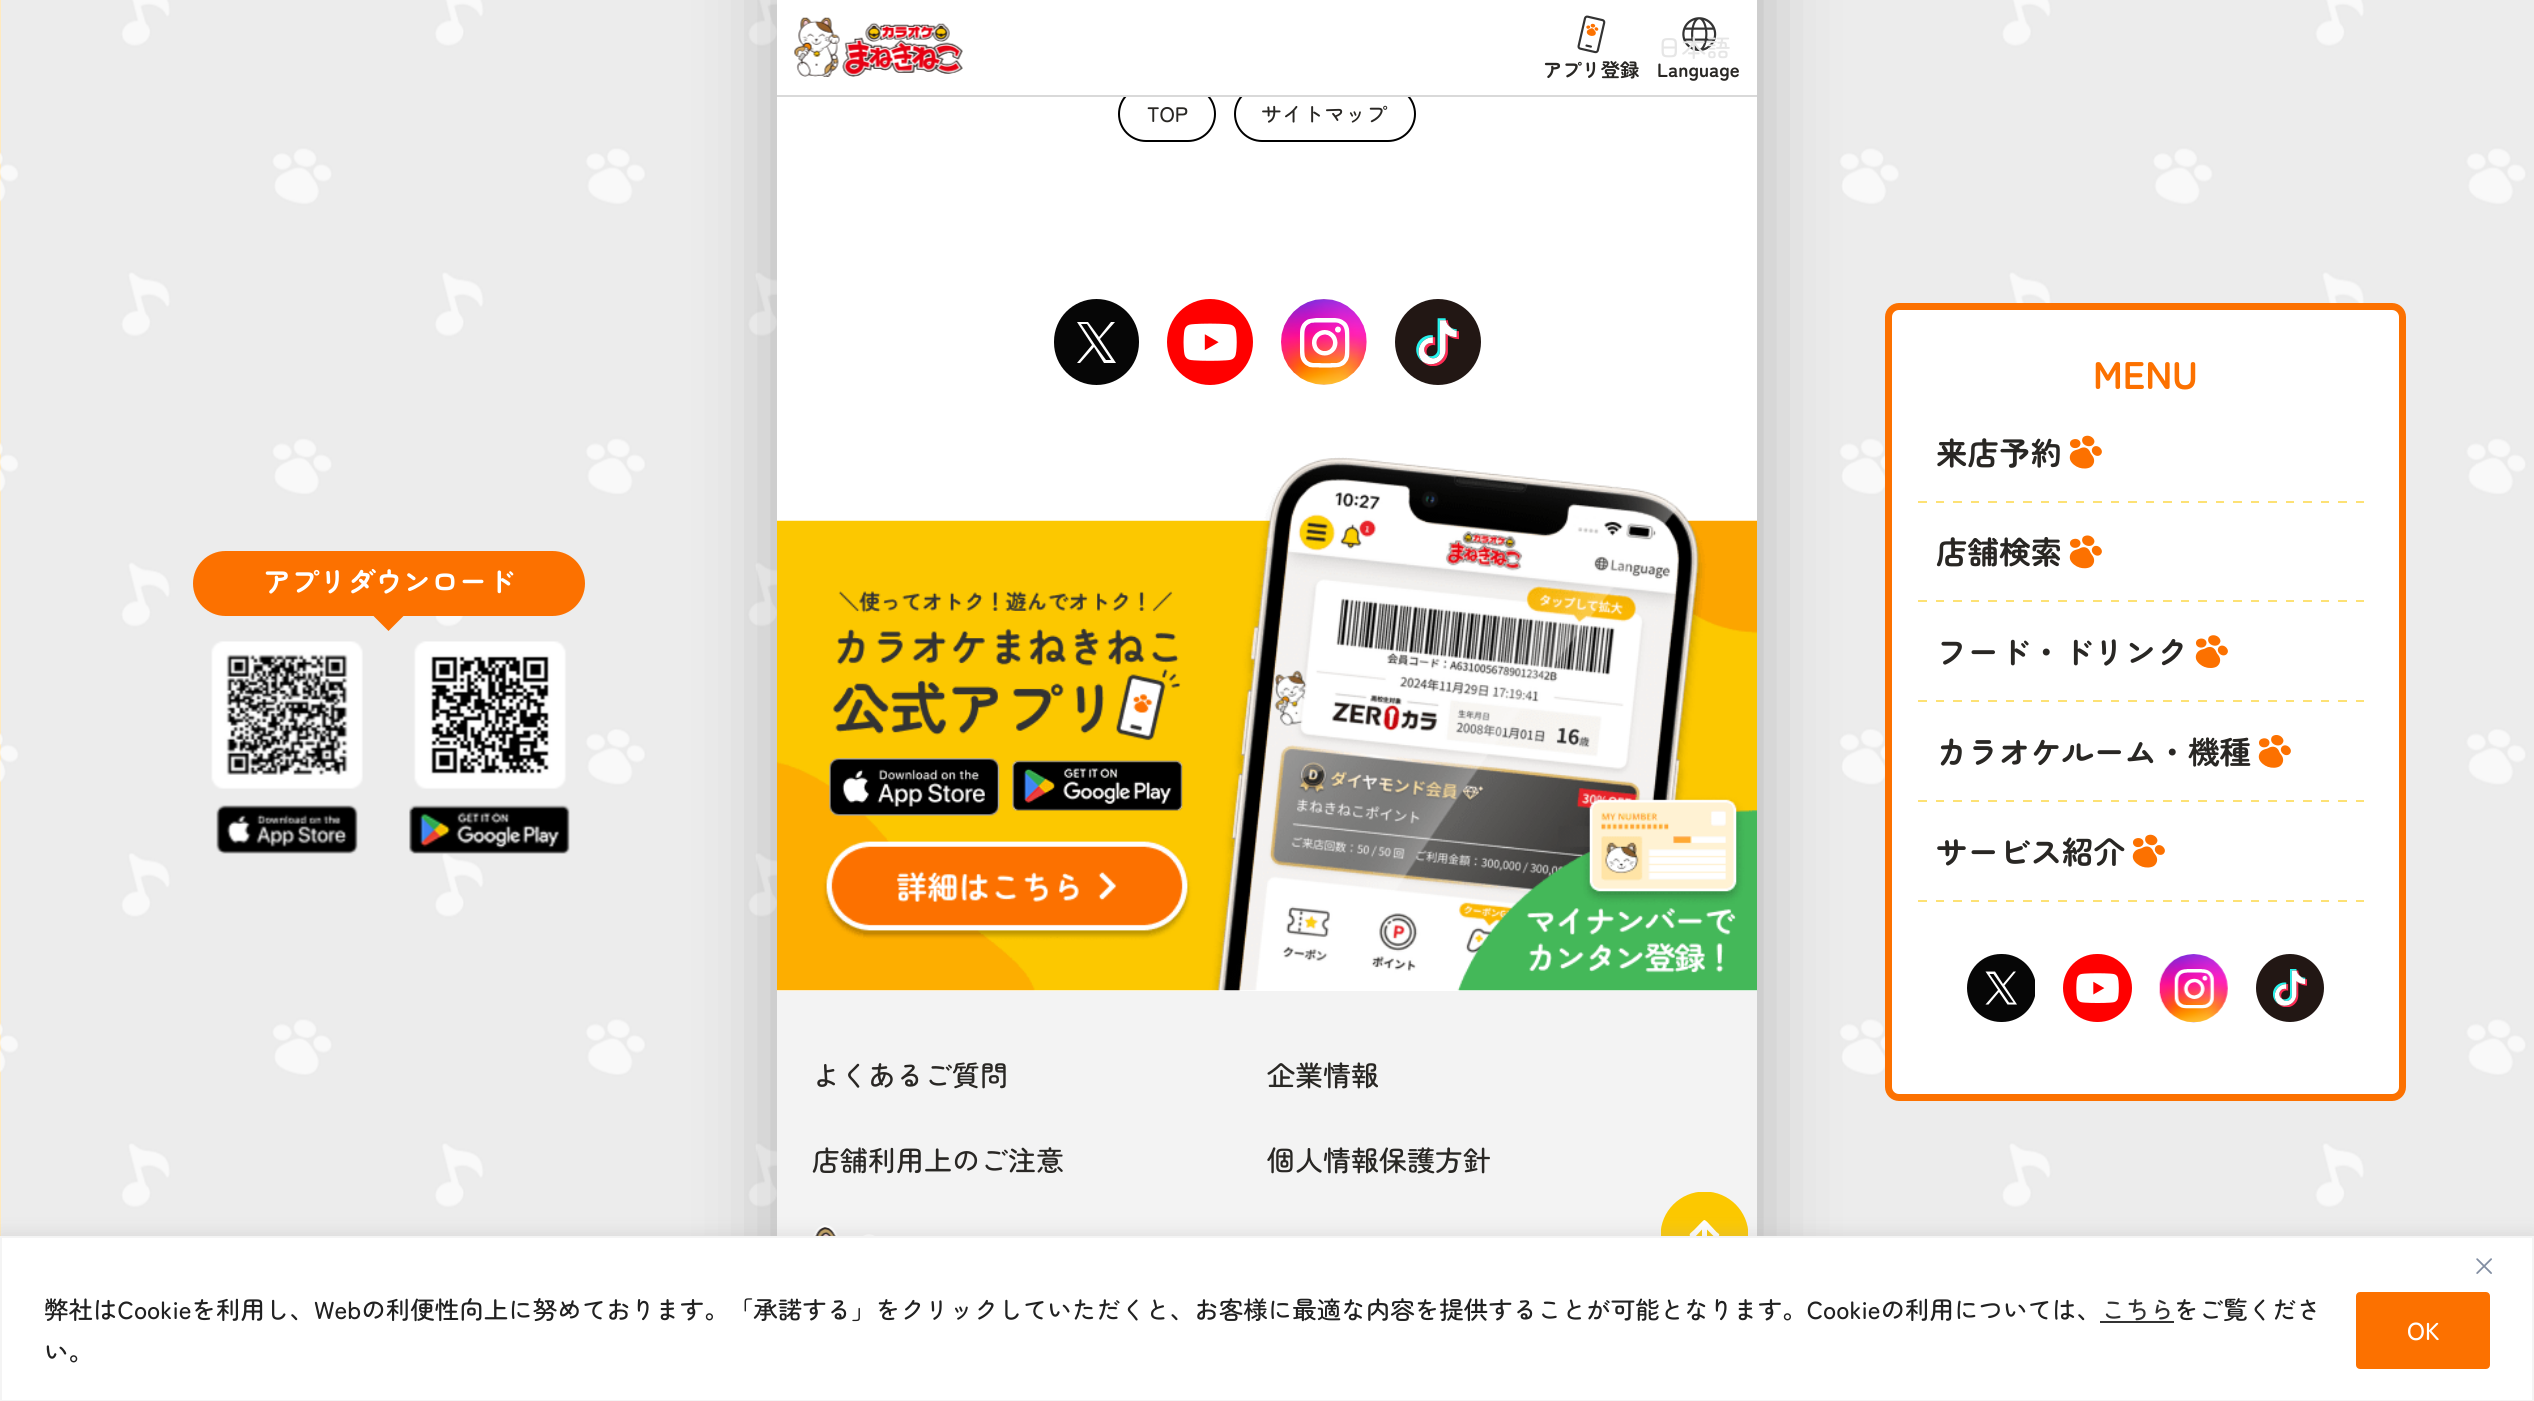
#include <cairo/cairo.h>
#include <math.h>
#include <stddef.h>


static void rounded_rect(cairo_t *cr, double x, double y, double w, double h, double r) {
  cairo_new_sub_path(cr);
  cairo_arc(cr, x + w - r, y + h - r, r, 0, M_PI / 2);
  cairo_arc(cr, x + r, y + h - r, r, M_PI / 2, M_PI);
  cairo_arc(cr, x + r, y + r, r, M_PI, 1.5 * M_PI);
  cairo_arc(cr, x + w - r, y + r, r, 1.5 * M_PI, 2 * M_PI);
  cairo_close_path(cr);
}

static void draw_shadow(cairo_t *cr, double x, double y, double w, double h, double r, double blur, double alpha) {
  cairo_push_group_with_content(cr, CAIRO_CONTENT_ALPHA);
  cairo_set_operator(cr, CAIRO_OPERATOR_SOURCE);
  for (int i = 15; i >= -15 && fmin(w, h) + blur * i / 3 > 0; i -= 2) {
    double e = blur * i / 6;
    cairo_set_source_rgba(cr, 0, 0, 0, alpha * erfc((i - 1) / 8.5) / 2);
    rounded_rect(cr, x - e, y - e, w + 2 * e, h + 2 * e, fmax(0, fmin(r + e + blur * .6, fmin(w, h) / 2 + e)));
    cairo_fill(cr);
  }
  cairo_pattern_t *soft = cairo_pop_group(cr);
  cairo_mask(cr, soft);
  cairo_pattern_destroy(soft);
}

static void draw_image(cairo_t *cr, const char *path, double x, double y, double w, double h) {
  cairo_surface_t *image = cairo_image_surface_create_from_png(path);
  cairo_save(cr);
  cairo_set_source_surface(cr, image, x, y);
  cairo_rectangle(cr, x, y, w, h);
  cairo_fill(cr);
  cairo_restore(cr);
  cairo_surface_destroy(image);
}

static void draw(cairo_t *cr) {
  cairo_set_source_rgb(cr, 1, 1, 1);
  cairo_paint(cr);
  draw_image(cr, "images/4.png", 0, 0, 2534, 1236);
  cairo_set_source_rgb(cr, 0, 0, 0);
  draw_shadow(cr, 777, -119, 980, 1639, 0, 39.5, 0.25);
  cairo_set_source_rgb(cr, 1, 1, 1);
  cairo_rectangle(cr, 777, 97, 980, 894);
  cairo_fill(cr);
  rounded_rect(cr, 1119, 87, 96, 54, 27);
  cairo_set_source_rgb(cr, 0, 0, 0);
  cairo_stroke(cr);
  rounded_rect(cr, 1235, 87, 180, 54, 27);
  cairo_stroke(cr);
  cairo_set_source_rgb(cr, 1, 1, 1);
  cairo_rectangle(cr, 777, 0, 980, 95);
  cairo_fill(cr);
  cairo_set_source_rgb(cr, 217 / 255.0, 217 / 255.0, 217 / 255.0);
  cairo_rectangle(cr, 777, 95, 980, 2);
  cairo_fill(cr);
  draw_image(cr, "images/1.png", 794, 17, 169, 60);
  draw_image(cr, "images/2.png", 1577, 15, 29, 39);
  draw_image(cr, "images/3.png", 1682, 17, 35, 35);
  cairo_set_source_rgb(cr, 252 / 255.0, 113 / 255.0, 0);
  rounded_rect(cr, 193, 551, 392, 65, 32.5);
  cairo_fill(cr);
  cairo_new_path(cr);
  cairo_move_to(cr, 371, 613.5);
  cairo_line_to(cr, 406, 613.5);
  cairo_line_to(cr, 388.5, 631);
  cairo_close_path(cr);
  cairo_fill(cr);
  draw_image(cr, "images/5.png", 211, 641, 152, 213);
  draw_image(cr, "images/6.png", 409, 641, 161, 213);
  cairo_set_source_rgb(cr, 6 / 255.0, 6 / 255.0, 6 / 255.0);
  rounded_rect(cr, 1054, 299, 85, 86, 42.5);
  cairo_fill(cr);
  cairo_set_source_rgb(cr, 1, 1, 1);
  cairo_new_path(cr);
  cairo_move_to(cr, 1100, 339);
  cairo_line_to(cr, 1115, 322);
  cairo_line_to(cr, 1111, 322);
  cairo_line_to(cr, 1099, 337);
  cairo_line_to(cr, 1088, 322);
  cairo_line_to(cr, 1077, 322);
  cairo_line_to(cr, 1092, 345);
  cairo_line_to(cr, 1077, 363);
  cairo_line_to(cr, 1080, 363);
  cairo_line_to(cr, 1094, 347);
  cairo_line_to(cr, 1104, 363);
  cairo_line_to(cr, 1116, 363);
  cairo_close_path(cr);
  cairo_move_to(cr, 1095, 345);
  cairo_line_to(cr, 1081, 324);
  cairo_line_to(cr, 1087, 324);
  cairo_line_to(cr, 1111, 360);
  cairo_line_to(cr, 1106, 360);
  cairo_close_path(cr);
  cairo_fill(cr);
  draw_image(cr, "images/7.png", 1167, 299, 86, 86);
  draw_image(cr, "images/8.png", 1281, 299, 86, 86);
  draw_image(cr, "images/9.png", 1395, 299, 86, 86);
  draw_image(cr, "images/10.png", 777, 457, 980, 534);
  cairo_set_source_rgb(cr, 243 / 255.0, 243 / 255.0, 243 / 255.0);
  cairo_rectangle(cr, 777, 991, 980, 245);
  cairo_fill(cr);
  draw_image(cr, "images/11.png", 813, 1225, 62, 11);
  cairo_save(cr);
  cairo_rectangle(cr, 1661, 1192, 87, 87);
  cairo_clip(cr);
  cairo_set_source_rgb(cr, 252 / 255.0, 200 / 255.0, 0);
  cairo_arc(cr, 1704.5, 1235.5, 44, 0, 2 * M_PI);
  cairo_fill(cr);
  cairo_restore(cr);
  cairo_set_source_rgb(cr, 1, 1, 1);
  cairo_new_path(cr);
  cairo_move_to(cr, 1691.5, 1238);
  cairo_curve_to(cr, 1687.5, 1234, 1690.5, 1233.5, 1694.5, 1229.5);
  cairo_curve_to(cr, 1696, 1228, 1703, 1220.5, 1704, 1220);
  cairo_curve_to(cr, 1706, 1220, 1709, 1224, 1710, 1225);
  cairo_line_to(cr, 1716.5, 1232);
  cairo_curve_to(cr, 1719, 1234, 1720.5, 1234.5, 1718, 1237);
  cairo_line_to(cr, 1717, 1238);
  cairo_line_to(cr, 1715.5, 1238);
  cairo_line_to(cr, 1707, 1229.5);
  cairo_line_to(cr, 1707, 1249);
  cairo_curve_to(cr, 1707, 1250, 1706.5, 1251, 1705.5, 1251);
  cairo_line_to(cr, 1703.5, 1251);
  cairo_curve_to(cr, 1702.5, 1251, 1702, 1250, 1702, 1249);
  cairo_line_to(cr, 1702, 1229.5);
  cairo_line_to(cr, 1694, 1238);
  cairo_curve_to(cr, 1693, 1238.5, 1692, 1238.5, 1691.5, 1238);
  cairo_close_path(cr);
  cairo_fill(cr);
  rounded_rect(cr, 1888.5, 306.5, 514, 791, 10.5);
  cairo_fill_preserve(cr);
  cairo_set_source_rgb(cr, 252 / 255.0, 113 / 255.0, 0);
  cairo_set_line_width(cr, 7);
  cairo_stroke(cr);
  draw_image(cr, "images/12.png", 2069, 435, 33, 34);
  draw_image(cr, "images/13.png", 1918, 501, 446, 2);
  draw_image(cr, "images/14.png", 2069, 535, 33, 34);
  draw_image(cr, "images/13.png", 1918, 600, 446, 2);
  draw_image(cr, "images/15.png", 2195, 635, 33, 33);
  draw_image(cr, "images/13.png", 1918, 700, 446, 2);
  draw_image(cr, "images/16.png", 2258, 735, 33, 33);
  draw_image(cr, "images/13.png", 1918, 800, 446, 2);
  draw_image(cr, "images/12.png", 2132, 834, 33, 34);
  draw_image(cr, "images/13.png", 1918, 900, 446, 2);
  cairo_save(cr);
  cairo_rectangle(cr, 1967, 954, 68, 70);
  cairo_clip(cr);
  cairo_set_source_rgb(cr, 6 / 255.0, 6 / 255.0, 6 / 255.0);
  rounded_rect(cr, 1967, 954, 69, 68, 34);
  cairo_fill(cr);
  cairo_restore(cr);
  cairo_set_source_rgb(cr, 1, 1, 1);
  cairo_new_path(cr);
  cairo_move_to(cr, 2004.5, 985.5);
  cairo_line_to(cr, 2016, 971.5);
  cairo_line_to(cr, 2013.5, 971.5);
  cairo_line_to(cr, 2003, 984);
  cairo_line_to(cr, 1995, 971.5);
  cairo_line_to(cr, 1985.5, 971.5);
  cairo_line_to(cr, 1998, 990);
  cairo_line_to(cr, 1985.5, 1004.5);
  cairo_line_to(cr, 1988.5, 1004.5);
  cairo_line_to(cr, 1999, 992);
  cairo_line_to(cr, 2007.5, 1004.5);
  cairo_line_to(cr, 2017, 1004.5);
  cairo_close_path(cr);
  cairo_move_to(cr, 2000.5, 990);
  cairo_line_to(cr, 1989.5, 974);
  cairo_line_to(cr, 1993.5, 974);
  cairo_line_to(cr, 2013.5, 1002.5);
  cairo_line_to(cr, 2009, 1002.5);
  cairo_close_path(cr);
  cairo_fill(cr);
  draw_image(cr, "images/17.png", 2063, 954, 69, 68);
  draw_image(cr, "images/18.png", 2159, 954, 69, 69);
  draw_image(cr, "images/19.png", 2256, 954, 68, 68);
  cairo_set_source_rgb(cr, 172 / 255.0, 171 / 255.0, 171 / 255.0);
  draw_shadow(cr, 0, 1234, 2534, 166, 0, 9, 0.3);
  cairo_set_source_rgb(cr, 1, 1, 1);
  cairo_rectangle(cr, 1, 1237, 2532, 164);
  cairo_fill_preserve(cr);
  cairo_set_source_rgb(cr, 244 / 255.0, 244 / 255.0, 244 / 255.0);
  cairo_set_line_width(cr, 2);
  cairo_stroke(cr);
  draw_image(cr, "images/20.png", 2476, 1258, 16, 16);
  cairo_set_source_rgb(cr, 51 / 255.0, 51 / 255.0, 51 / 255.0);
  cairo_rectangle(cr, 2100, 1321, 74, 2);
  cairo_fill(cr);
  cairo_set_source_rgb(cr, 252 / 255.0, 113 / 255.0, 0);
  rounded_rect(cr, 2358, 1294, 130, 73, 2);
  cairo_fill_preserve(cr);
  cairo_set_line_width(cr, 4);
  cairo_stroke(cr);
  cairo_select_font_face(cr, "Zen Maru Gothic", CAIRO_FONT_SLANT_NORMAL, CAIRO_FONT_WEIGHT_BOLD);
  cairo_set_font_size(cr, 19.25);
  cairo_set_source_rgb(cr, 41 / 255.0, 39 / 255.0, 36 / 255.0);
  cairo_move_to(cr, 1543, 77);
  cairo_show_text(cr, "アプリ登録");
  cairo_select_font_face(cr, "Zen Maru Gothic Medium", CAIRO_FONT_SLANT_NORMAL, CAIRO_FONT_WEIGHT_NORMAL);
  cairo_set_font_size(cr, 24.5);
  cairo_set_source_rgb(cr, 230 / 255.0, 230 / 255.0, 230 / 255.0);
  cairo_move_to(cr, 1657, 57);
  cairo_show_text(cr, "日本語");
  cairo_select_font_face(cr, "Zen Maru Gothic", CAIRO_FONT_SLANT_NORMAL, CAIRO_FONT_WEIGHT_BOLD);
  cairo_set_font_size(cr, 19.25);
  cairo_set_source_rgb(cr, 41 / 255.0, 39 / 255.0, 36 / 255.0);
  cairo_move_to(cr, 1657, 77);
  cairo_show_text(cr, "Language");
  cairo_set_font_size(cr, 28);
  cairo_set_source_rgb(cr, 1, 1, 1);
  cairo_move_to(cr, 263, 592);
  cairo_show_text(cr, "アプリダウンロード");
  cairo_select_font_face(cr, "Zen Maru Gothic Medium", CAIRO_FONT_SLANT_NORMAL, CAIRO_FONT_WEIGHT_NORMAL);
  cairo_set_font_size(cr, 21);
  cairo_set_source_rgb(cr, 41 / 255.0, 39 / 255.0, 36 / 255.0);
  cairo_move_to(cr, 1147, 122);
  cairo_show_text(cr, "TOP");
  cairo_move_to(cr, 1261, 122);
  cairo_show_text(cr, "サイトマップ");
  cairo_set_font_size(cr, 28);
  cairo_move_to(cr, 812, 1086);
  cairo_show_text(cr, "よくあるご質問");
  cairo_move_to(cr, 1267, 1086);
  cairo_show_text(cr, "企業情報");
  cairo_move_to(cr, 812, 1171);
  cairo_show_text(cr, "店舗利用上のご注意");
  cairo_move_to(cr, 1267, 1171);
  cairo_show_text(cr, "個人情報保護方針");
  cairo_select_font_face(cr, "Zen Maru Gothic", CAIRO_FONT_SLANT_NORMAL, CAIRO_FONT_WEIGHT_BOLD);
  cairo_set_font_size(cr, 38.5);
  cairo_set_source_rgb(cr, 252 / 255.0, 113 / 255.0, 0);
  cairo_move_to(cr, 2093, 389);
  cairo_show_text(cr, "MENU");
  cairo_set_font_size(cr, 31.5);
  cairo_set_source_rgb(cr, 41 / 255.0, 39 / 255.0, 36 / 255.0);
  cairo_move_to(cr, 1936, 465);
  cairo_show_text(cr, "来店予約");
  cairo_move_to(cr, 1936, 564);
  cairo_show_text(cr, "店舗検索");
  cairo_move_to(cr, 1936, 664);
  cairo_show_text(cr, "フード・ドリンク");
  cairo_move_to(cr, 1936, 764);
  cairo_show_text(cr, "カラオケルーム・機種");
  cairo_move_to(cr, 1936, 864);
  cairo_show_text(cr, "サービス紹介");
  cairo_select_font_face(cr, "Zen Maru Gothic Medium", CAIRO_FONT_SLANT_NORMAL, CAIRO_FONT_WEIGHT_NORMAL);
  cairo_set_font_size(cr, 24.5);
  cairo_set_source_rgb(cr, 33 / 255.0, 33 / 255.0, 33 / 255.0);
  cairo_move_to(cr, 44, 1319);
  cairo_show_text(cr, "弊社はCookieを利用し、Webの利便性向上に努めております。「承諾する」をクリックしていただくと、お客様に最適な内容を提供することが可能となります。Cookieの利用については、");
  cairo_set_source_rgb(cr, 51 / 255.0, 51 / 255.0, 51 / 255.0);
  cairo_move_to(cr, 2101, 1319);
  cairo_show_text(cr, "こちら");
  cairo_set_source_rgb(cr, 33 / 255.0, 33 / 255.0, 33 / 255.0);
  cairo_move_to(cr, 2174, 1319);
  cairo_show_text(cr, "をご覧くださ");
  cairo_move_to(cr, 44, 1361);
  cairo_show_text(cr, "い。");
  cairo_set_source_rgb(cr, 1, 1, 1);
  cairo_move_to(cr, 2407, 1340);
  cairo_show_text(cr, "OK");
}

int main(void) {
  cairo_surface_t *surface = cairo_image_surface_create(CAIRO_FORMAT_RGB24, 2534, 1401);
  cairo_t *cr = cairo_create(surface);
  cairo_font_options_t *options = cairo_font_options_create();
  cairo_font_options_set_hint_metrics(options, CAIRO_HINT_METRICS_OFF);
  cairo_font_options_set_hint_style(options, CAIRO_HINT_STYLE_NONE);
  cairo_set_font_options(cr, options);
  cairo_set_miter_limit(cr, 4);
  draw(cr);
  cairo_surface_write_to_png(surface, "out.png");
  cairo_font_options_destroy(options);
  cairo_destroy(cr);
  cairo_surface_destroy(surface);
  return 0;
}
